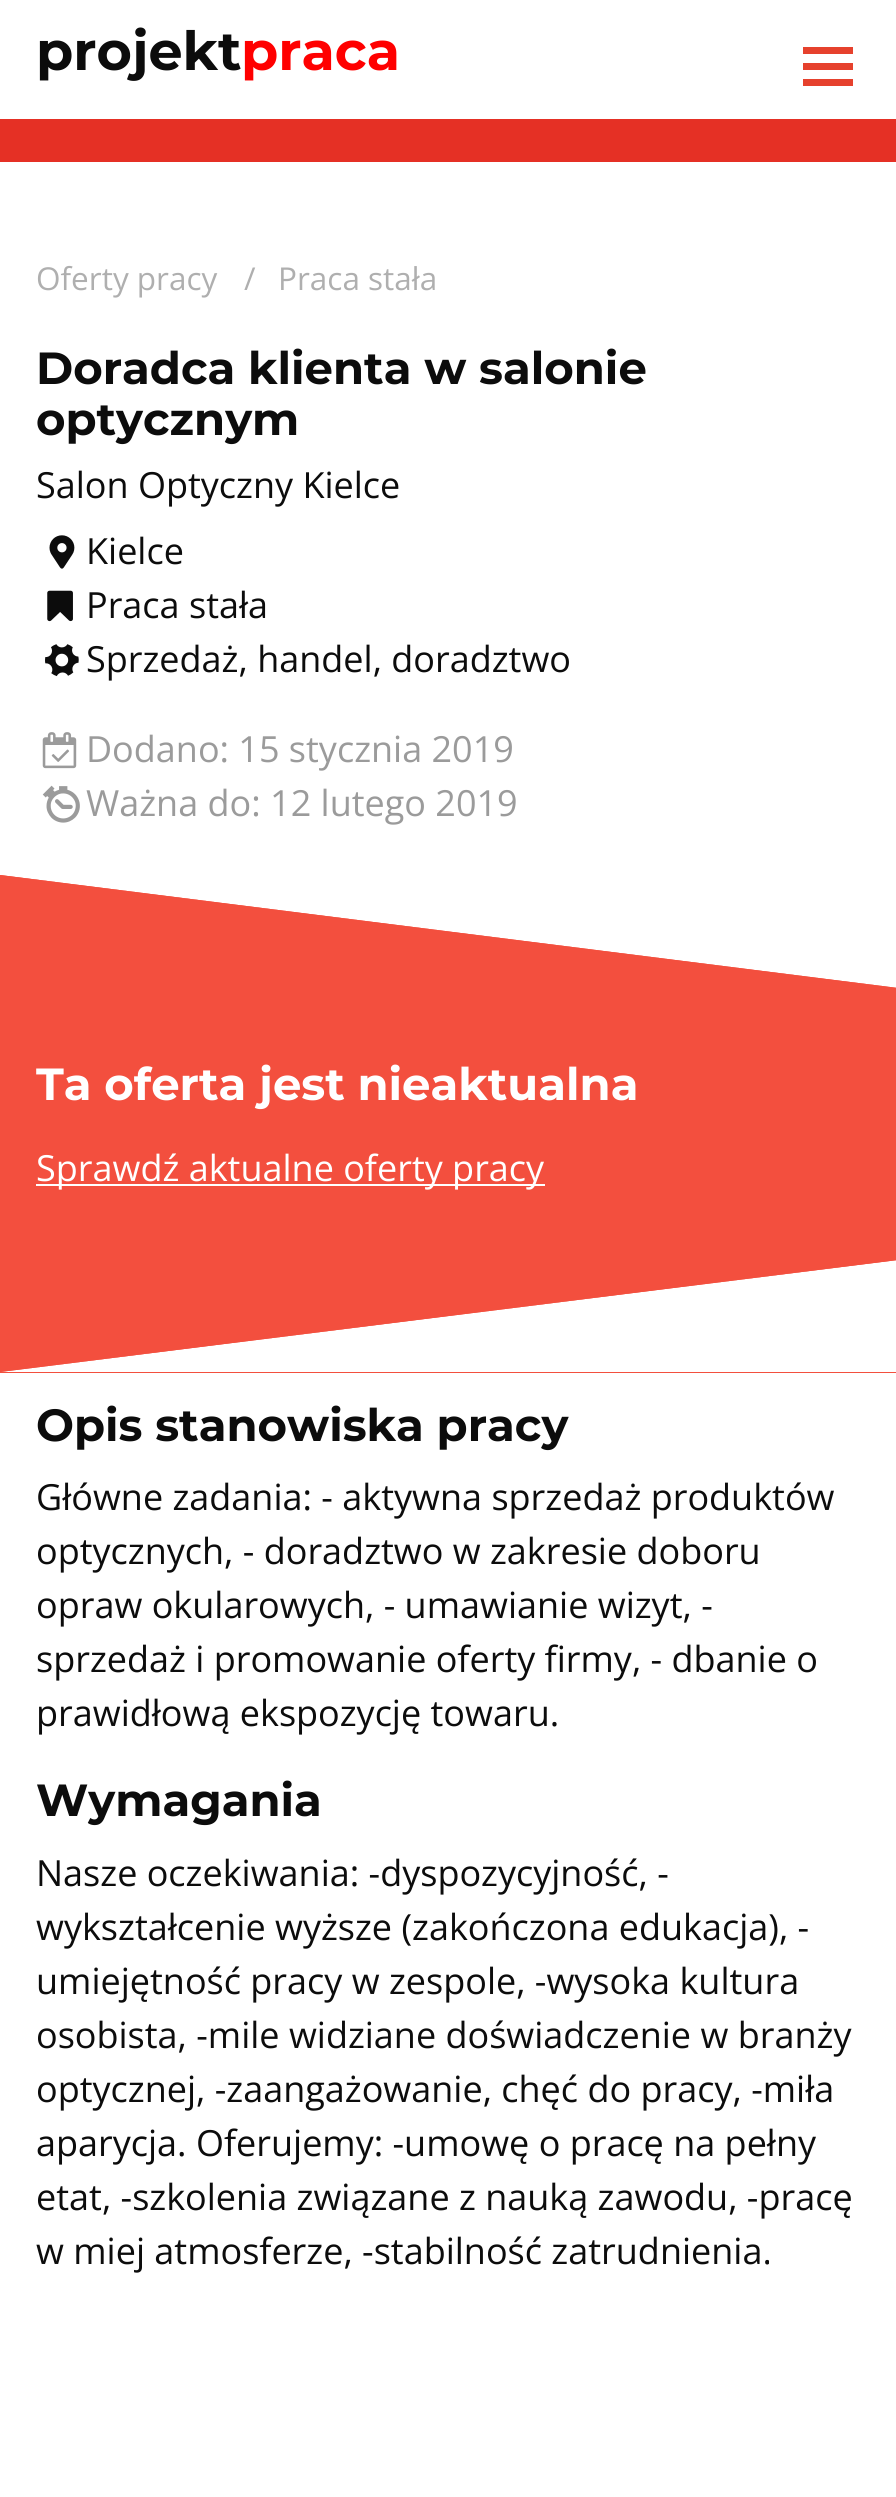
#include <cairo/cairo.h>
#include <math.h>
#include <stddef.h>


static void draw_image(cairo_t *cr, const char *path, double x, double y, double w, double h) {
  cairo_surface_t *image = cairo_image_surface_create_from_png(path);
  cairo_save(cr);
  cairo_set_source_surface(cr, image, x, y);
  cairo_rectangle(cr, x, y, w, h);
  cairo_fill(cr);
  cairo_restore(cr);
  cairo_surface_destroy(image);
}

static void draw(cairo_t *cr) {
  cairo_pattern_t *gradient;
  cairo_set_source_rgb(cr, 1, 1, 1);
  cairo_paint(cr);
  cairo_set_source_rgb(cr, 230 / 255.0, 65 / 255.0, 45 / 255.0);
  cairo_rectangle(cr, 803, 63, 50, 7);
  cairo_fill(cr);
  cairo_rectangle(cr, 803, 47, 50, 7);
  cairo_fill(cr);
  cairo_rectangle(cr, 803, 79, 50, 7);
  cairo_fill(cr);
  gradient = cairo_pattern_create_linear(453, 88, 426, 473);
  cairo_pattern_add_color_stop_rgba(gradient, 0.99, 229 / 255.0, 48 / 255.0, 37 / 255.0, 1);
  cairo_pattern_add_color_stop_rgba(gradient, 1, 230 / 255.0, 65 / 255.0, 45 / 255.0, 1);
  cairo_set_source(cr, gradient);
  cairo_pattern_destroy(gradient);
  cairo_rectangle(cr, 0, 119, 896, 43);
  cairo_fill(cr);
  draw_image(cr, "images/1.png", 49, 535, 26, 34);
  draw_image(cr, "images/2.png", 47, 590, 26, 32);
  draw_image(cr, "images/3.png", 45, 644, 34, 33);
  draw_image(cr, "images/4.png", 42, 732, 35, 37);
  draw_image(cr, "images/5.png", 42, 785, 38, 38);
  cairo_set_source_rgb(cr, 243 / 255.0, 79 / 255.0, 62 / 255.0);
  cairo_rectangle(cr, 0, 875, 896, 498);
  cairo_fill(cr);
  cairo_set_source_rgb(cr, 1, 1, 1);
  cairo_new_path(cr);
  cairo_move_to(cr, 0, 875);
  cairo_line_to(cr, 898, 875);
  cairo_line_to(cr, 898, 988);
  cairo_close_path(cr);
  cairo_fill(cr);
  cairo_set_source_rgb(cr, 243 / 255.0, 79 / 255.0, 62 / 255.0);
  cairo_new_path(cr);
  cairo_move_to(cr, 0, 988);
  cairo_line_to(cr, 0, 875);
  cairo_line_to(cr, 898, 988);
  cairo_close_path(cr);
  cairo_fill(cr);
  cairo_set_source_rgb(cr, 1, 1, 1);
  cairo_rectangle(cr, 36, 1184, 509, 2);
  cairo_fill(cr);
  cairo_new_path(cr);
  cairo_move_to(cr, 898, 1372);
  cairo_line_to(cr, 0, 1372);
  cairo_line_to(cr, 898, 1260);
  cairo_close_path(cr);
  cairo_fill(cr);
  cairo_set_source_rgb(cr, 243 / 255.0, 79 / 255.0, 62 / 255.0);
  cairo_new_path(cr);
  cairo_move_to(cr, 0, 1372);
  cairo_line_to(cr, 0, 1260);
  cairo_line_to(cr, 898, 1260);
  cairo_close_path(cr);
  cairo_fill(cr);
  cairo_select_font_face(cr, "Montserrat Thin", CAIRO_FONT_SLANT_NORMAL, CAIRO_FONT_WEIGHT_NORMAL);
  cairo_set_font_size(cr, 54);
  cairo_set_source_rgb(cr, 12 / 255.0, 12 / 255.0, 12 / 255.0);
  cairo_move_to(cr, 36, 70);
  cairo_show_text(cr, "projekt");
  cairo_set_source_rgb(cr, 1, 0, 0);
  cairo_move_to(cr, 241, 70);
  cairo_show_text(cr, "praca");
  cairo_select_font_face(cr, "Open Sans", CAIRO_FONT_SLANT_NORMAL, CAIRO_FONT_WEIGHT_NORMAL);
  cairo_set_font_size(cr, 31.5);
  cairo_set_source_rgb(cr, 175 / 255.0, 175 / 255.0, 175 / 255.0);
  cairo_move_to(cr, 36, 290);
  cairo_show_text(cr, "Oferty pracy");
  cairo_move_to(cr, 244, 290);
  cairo_show_text(cr, "/");
  cairo_move_to(cr, 278, 290);
  cairo_show_text(cr, "Praca stała");
  cairo_select_font_face(cr, "Montserrat Thin", CAIRO_FONT_SLANT_NORMAL, CAIRO_FONT_WEIGHT_NORMAL);
  cairo_set_font_size(cr, 45);
  cairo_set_source_rgb(cr, 12 / 255.0, 12 / 255.0, 12 / 255.0);
  cairo_move_to(cr, 36, 384);
  cairo_show_text(cr, "Doradca klienta w salonie");
  cairo_move_to(cr, 36, 435);
  cairo_show_text(cr, "optycznym");
  cairo_select_font_face(cr, "Open Sans", CAIRO_FONT_SLANT_NORMAL, CAIRO_FONT_WEIGHT_NORMAL);
  cairo_set_font_size(cr, 36);
  cairo_move_to(cr, 36, 498);
  cairo_show_text(cr, "Salon Optyczny Kielce");
  cairo_move_to(cr, 86, 564);
  cairo_show_text(cr, "Kielce");
  cairo_move_to(cr, 86, 618);
  cairo_show_text(cr, "Praca stała");
  cairo_move_to(cr, 86, 672);
  cairo_show_text(cr, "Sprzedaż, handel, doradztwo");
  cairo_set_source_rgb(cr, 155 / 255.0, 155 / 255.0, 155 / 255.0);
  cairo_move_to(cr, 86, 762);
  cairo_show_text(cr, "Dodano: 15 stycznia 2019");
  cairo_move_to(cr, 86, 816);
  cairo_show_text(cr, "Ważna do: 12 lutego 2019");
  cairo_select_font_face(cr, "Montserrat Thin", CAIRO_FONT_SLANT_NORMAL, CAIRO_FONT_WEIGHT_NORMAL);
  cairo_set_font_size(cr, 45);
  cairo_set_source_rgb(cr, 1, 1, 1);
  cairo_move_to(cr, 36, 1100);
  cairo_show_text(cr, "Ta oferta jest nieaktualna");
  cairo_select_font_face(cr, "Open Sans", CAIRO_FONT_SLANT_NORMAL, CAIRO_FONT_WEIGHT_NORMAL);
  cairo_set_font_size(cr, 36);
  cairo_move_to(cr, 36, 1181);
  cairo_show_text(cr, "Sprawdź aktualne oferty pracy");
  cairo_select_font_face(cr, "Montserrat Thin", CAIRO_FONT_SLANT_NORMAL, CAIRO_FONT_WEIGHT_NORMAL);
  cairo_set_font_size(cr, 45);
  cairo_set_source_rgb(cr, 12 / 255.0, 12 / 255.0, 12 / 255.0);
  cairo_move_to(cr, 36, 1441);
  cairo_show_text(cr, "Opis stanowiska pracy");
  cairo_select_font_face(cr, "Open Sans", CAIRO_FONT_SLANT_NORMAL, CAIRO_FONT_WEIGHT_NORMAL);
  cairo_set_font_size(cr, 36);
  cairo_move_to(cr, 36, 1510);
  cairo_show_text(cr, "Główne zadania: - aktywna sprzedaż produktów");
  cairo_move_to(cr, 36, 1564);
  cairo_show_text(cr, "optycznych, - doradztwo w zakresie doboru");
  cairo_move_to(cr, 36, 1618);
  cairo_show_text(cr, "opraw okularowych, - umawianie wizyt, -");
  cairo_move_to(cr, 36, 1672);
  cairo_show_text(cr, "sprzedaż i promowanie oferty firmy, - dbanie o");
  cairo_move_to(cr, 36, 1726);
  cairo_show_text(cr, "prawidłową ekspozycję towaru.");
  cairo_select_font_face(cr, "Montserrat Thin", CAIRO_FONT_SLANT_NORMAL, CAIRO_FONT_WEIGHT_NORMAL);
  cairo_set_font_size(cr, 45);
  cairo_move_to(cr, 36, 1816);
  cairo_show_text(cr, "Wymagania");
  cairo_select_font_face(cr, "Open Sans", CAIRO_FONT_SLANT_NORMAL, CAIRO_FONT_WEIGHT_NORMAL);
  cairo_set_font_size(cr, 36);
  cairo_move_to(cr, 36, 1886);
  cairo_show_text(cr, "Nasze oczekiwania: -dyspozycyjność, -");
  cairo_move_to(cr, 36, 1940);
  cairo_show_text(cr, "wykształcenie wyższe (zakończona edukacja), -");
  cairo_move_to(cr, 36, 1994);
  cairo_show_text(cr, "umiejętność pracy w zespole, -wysoka kultura");
  cairo_move_to(cr, 36, 2048);
  cairo_show_text(cr, "osobista, -mile widziane doświadczenie w branży");
  cairo_move_to(cr, 36, 2102);
  cairo_show_text(cr, "optycznej, -zaangażowanie, chęć do pracy, -miła");
  cairo_move_to(cr, 36, 2156);
  cairo_show_text(cr, "aparycja. Oferujemy: -umowę o pracę na pełny");
  cairo_move_to(cr, 36, 2210);
  cairo_show_text(cr, "etat, -szkolenia związane z nauką zawodu, -pracę");
  cairo_move_to(cr, 36, 2264);
  cairo_show_text(cr, "w miej atmosferze, -stabilność zatrudnienia.");
}

int main(void) {
  cairo_surface_t *surface = cairo_image_surface_create(CAIRO_FORMAT_RGB24, 896, 2497);
  cairo_t *cr = cairo_create(surface);
  cairo_font_options_t *options = cairo_font_options_create();
  cairo_font_options_set_hint_metrics(options, CAIRO_HINT_METRICS_OFF);
  cairo_font_options_set_hint_style(options, CAIRO_HINT_STYLE_NONE);
  cairo_set_font_options(cr, options);
  cairo_set_miter_limit(cr, 4);
  draw(cr);
  cairo_surface_write_to_png(surface, "out.png");
  cairo_font_options_destroy(options);
  cairo_destroy(cr);
  cairo_surface_destroy(surface);
  return 0;
}
